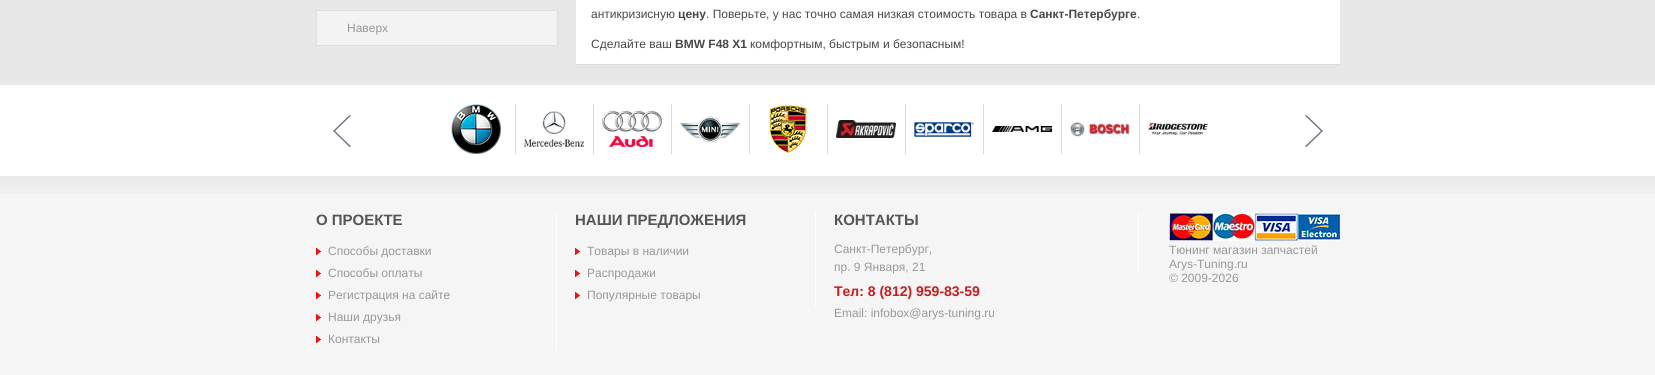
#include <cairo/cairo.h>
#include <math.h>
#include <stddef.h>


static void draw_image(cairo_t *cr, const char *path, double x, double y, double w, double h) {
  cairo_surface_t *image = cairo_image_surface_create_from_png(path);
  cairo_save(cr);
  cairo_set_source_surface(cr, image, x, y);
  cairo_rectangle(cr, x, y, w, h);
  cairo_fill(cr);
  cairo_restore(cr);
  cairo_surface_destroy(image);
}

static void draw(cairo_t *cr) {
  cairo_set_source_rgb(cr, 231 / 255.0, 231 / 255.0, 231 / 255.0);
  cairo_paint(cr);
  cairo_set_source_rgb(cr, 243 / 255.0, 243 / 255.0, 243 / 255.0);
  cairo_rectangle(cr, 316.5, 10.5, 241, 35);
  cairo_fill_preserve(cr);
  cairo_set_source_rgb(cr, 224 / 255.0, 224 / 255.0, 224 / 255.0);
  cairo_set_line_width(cr, 1);
  cairo_stroke(cr);
  cairo_set_source_rgb(cr, 1, 1, 1);
  cairo_rectangle(cr, 576, 0, 764, 64);
  cairo_fill(cr);
  cairo_set_source_rgb(cr, 221 / 255.0, 221 / 255.0, 221 / 255.0);
  cairo_rectangle(cr, 576, 64, 764, 1);
  cairo_fill(cr);
  cairo_set_source_rgb(cr, 245 / 255.0, 245 / 255.0, 245 / 255.0);
  cairo_rectangle(cr, 0, 194, 1655, 181);
  cairo_fill(cr);
  draw_image(cr, "images/1.png", 0, 85, 1655, 109);
  draw_image(cr, "images/2.png", 333, 115, 18, 32);
  cairo_set_source_rgb(cr, 217 / 255.0, 217 / 255.0, 217 / 255.0);
  cairo_rectangle(cr, 515, 104, 1, 50);
  cairo_fill(cr);
  draw_image(cr, "images/3.png", 451, 104, 50, 50);
  cairo_rectangle(cr, 593, 104, 1, 50);
  cairo_fill(cr);
  draw_image(cr, "images/4.png", 524, 111, 60, 36);
  cairo_rectangle(cr, 671, 104, 1, 50);
  cairo_fill(cr);
  draw_image(cr, "images/5.png", 602, 111, 60, 36);
  cairo_rectangle(cr, 749, 104, 1, 50);
  cairo_fill(cr);
  draw_image(cr, "images/6.png", 680, 116, 60, 27);
  cairo_rectangle(cr, 827, 104, 1, 50);
  cairo_fill(cr);
  draw_image(cr, "images/7.png", 769, 105, 38, 48);
  cairo_rectangle(cr, 905, 104, 1, 50);
  cairo_fill(cr);
  draw_image(cr, "images/8.png", 836, 120, 60, 18);
  cairo_rectangle(cr, 983, 104, 1, 50);
  cairo_fill(cr);
  draw_image(cr, "images/9.png", 914, 122, 60, 15);
  cairo_rectangle(cr, 1061, 104, 1, 50);
  cairo_fill(cr);
  draw_image(cr, "images/10.png", 992, 126, 60, 6);
  cairo_rectangle(cr, 1139, 104, 1, 50);
  cairo_fill(cr);
  draw_image(cr, "images/11.png", 1070, 121, 60, 17);
  draw_image(cr, "images/12.png", 1148, 123, 60, 12);
  draw_image(cr, "images/13.png", 1305, 115, 18, 32);
  cairo_set_source_rgb(cr, 1, 1, 1);
  cairo_rectangle(cr, 556, 211, 1, 139);
  cairo_fill(cr);
  draw_image(cr, "images/14.png", 316, 248, 5, 7);
  draw_image(cr, "images/14.png", 316, 270, 5, 7);
  draw_image(cr, "images/14.png", 316, 292, 5, 7);
  draw_image(cr, "images/14.png", 316, 314, 5, 7);
  draw_image(cr, "images/14.png", 316, 336, 5, 7);
  cairo_rectangle(cr, 815, 211, 1, 95);
  cairo_fill(cr);
  draw_image(cr, "images/14.png", 575, 248, 5, 7);
  draw_image(cr, "images/14.png", 575, 270, 5, 7);
  draw_image(cr, "images/14.png", 575, 292, 5, 7);
  draw_image(cr, "images/15.png", 1169, 213, 171, 28);
  cairo_rectangle(cr, 1138, 213, 1, 58);
  cairo_fill(cr);
  cairo_select_font_face(cr, "Liberation Sans", CAIRO_FONT_SLANT_NORMAL, CAIRO_FONT_WEIGHT_NORMAL);
  cairo_set_font_size(cr, 12);
  cairo_set_source_rgb(cr, 152 / 255.0, 152 / 255.0, 152 / 255.0);
  cairo_move_to(cr, 347, 32);
  cairo_show_text(cr, "Наверх");
  cairo_set_source_rgb(cr, 72 / 255.0, 72 / 255.0, 72 / 255.0);
  cairo_move_to(cr, 591, 18);
  cairo_show_text(cr, "антикризисную");
  cairo_select_font_face(cr, "Liberation Sans", CAIRO_FONT_SLANT_NORMAL, CAIRO_FONT_WEIGHT_BOLD);
  cairo_move_to(cr, 678, 18);
  cairo_show_text(cr, "цену");
  cairo_select_font_face(cr, "Liberation Sans", CAIRO_FONT_SLANT_NORMAL, CAIRO_FONT_WEIGHT_NORMAL);
  cairo_move_to(cr, 706, 18);
  cairo_show_text(cr, ". Поверьте, у нас точно самая низкая стоимость товара в");
  cairo_select_font_face(cr, "Liberation Sans", CAIRO_FONT_SLANT_NORMAL, CAIRO_FONT_WEIGHT_BOLD);
  cairo_move_to(cr, 1030, 18);
  cairo_show_text(cr, "Санкт-Петербурге");
  cairo_select_font_face(cr, "Liberation Sans", CAIRO_FONT_SLANT_NORMAL, CAIRO_FONT_WEIGHT_NORMAL);
  cairo_move_to(cr, 1137, 18);
  cairo_show_text(cr, ".");
  cairo_move_to(cr, 591, 48);
  cairo_show_text(cr, "Сделайте ваш");
  cairo_select_font_face(cr, "Liberation Sans", CAIRO_FONT_SLANT_NORMAL, CAIRO_FONT_WEIGHT_BOLD);
  cairo_move_to(cr, 675, 48);
  cairo_show_text(cr, "BMW F48 X1");
  cairo_select_font_face(cr, "Liberation Sans", CAIRO_FONT_SLANT_NORMAL, CAIRO_FONT_WEIGHT_NORMAL);
  cairo_move_to(cr, 750, 48);
  cairo_show_text(cr, "комфортным, быстрым и безопасным!");
  cairo_select_font_face(cr, "Liberation Sans", CAIRO_FONT_SLANT_NORMAL, CAIRO_FONT_WEIGHT_BOLD);
  cairo_set_font_size(cr, 15);
  cairo_set_source_rgb(cr, 86 / 255.0, 85 / 255.0, 85 / 255.0);
  cairo_move_to(cr, 316, 225);
  cairo_show_text(cr, "О ПРОЕКТЕ");
  cairo_select_font_face(cr, "Liberation Sans", CAIRO_FONT_SLANT_NORMAL, CAIRO_FONT_WEIGHT_NORMAL);
  cairo_set_font_size(cr, 12);
  cairo_set_source_rgb(cr, 152 / 255.0, 152 / 255.0, 152 / 255.0);
  cairo_move_to(cr, 328, 255);
  cairo_show_text(cr, "Способы доставки");
  cairo_move_to(cr, 328, 277);
  cairo_show_text(cr, "Способы оплаты");
  cairo_move_to(cr, 328, 299);
  cairo_show_text(cr, "Регистрация на сайте");
  cairo_move_to(cr, 328, 321);
  cairo_show_text(cr, "Наши друзья");
  cairo_move_to(cr, 328, 343);
  cairo_show_text(cr, "Контакты");
  cairo_select_font_face(cr, "Liberation Sans", CAIRO_FONT_SLANT_NORMAL, CAIRO_FONT_WEIGHT_BOLD);
  cairo_set_font_size(cr, 15);
  cairo_set_source_rgb(cr, 86 / 255.0, 85 / 255.0, 85 / 255.0);
  cairo_move_to(cr, 575, 225);
  cairo_show_text(cr, "НАШИ ПРЕДЛОЖЕНИЯ");
  cairo_select_font_face(cr, "Liberation Sans", CAIRO_FONT_SLANT_NORMAL, CAIRO_FONT_WEIGHT_NORMAL);
  cairo_set_font_size(cr, 12);
  cairo_set_source_rgb(cr, 152 / 255.0, 152 / 255.0, 152 / 255.0);
  cairo_move_to(cr, 587, 255);
  cairo_show_text(cr, "Товары в наличии");
  cairo_move_to(cr, 587, 277);
  cairo_show_text(cr, "Распродажи");
  cairo_move_to(cr, 587, 299);
  cairo_show_text(cr, "Популярные товары");
  cairo_select_font_face(cr, "Liberation Sans", CAIRO_FONT_SLANT_NORMAL, CAIRO_FONT_WEIGHT_BOLD);
  cairo_set_font_size(cr, 15);
  cairo_set_source_rgb(cr, 86 / 255.0, 85 / 255.0, 85 / 255.0);
  cairo_move_to(cr, 834, 225);
  cairo_show_text(cr, "КОНТАКТЫ");
  cairo_select_font_face(cr, "Liberation Sans", CAIRO_FONT_SLANT_NORMAL, CAIRO_FONT_WEIGHT_NORMAL);
  cairo_set_font_size(cr, 12);
  cairo_set_source_rgb(cr, 152 / 255.0, 152 / 255.0, 152 / 255.0);
  cairo_move_to(cr, 834, 253);
  cairo_show_text(cr, "Санкт-Петербург,");
  cairo_move_to(cr, 834, 271);
  cairo_show_text(cr, "пр. 9 Января, 21");
  cairo_select_font_face(cr, "Liberation Sans", CAIRO_FONT_SLANT_NORMAL, CAIRO_FONT_WEIGHT_BOLD);
  cairo_set_font_size(cr, 14);
  cairo_set_source_rgb(cr, 206 / 255.0, 26 / 255.0, 26 / 255.0);
  cairo_move_to(cr, 834, 296);
  cairo_show_text(cr, "Тел: 8 (812) 959-83-59");
  cairo_select_font_face(cr, "Liberation Sans", CAIRO_FONT_SLANT_NORMAL, CAIRO_FONT_WEIGHT_NORMAL);
  cairo_set_font_size(cr, 12);
  cairo_set_source_rgb(cr, 152 / 255.0, 152 / 255.0, 152 / 255.0);
  cairo_move_to(cr, 834, 317);
  cairo_show_text(cr, "Email: infobox@arys-tuning.ru");
  cairo_move_to(cr, 1169, 254);
  cairo_show_text(cr, "Тюнинг магазин запчастей");
  cairo_move_to(cr, 1169, 268);
  cairo_show_text(cr, "Arys-Tuning.ru");
  cairo_move_to(cr, 1169, 282);
  cairo_show_text(cr, "© 2009-2026");
}

int main(void) {
  cairo_surface_t *surface = cairo_image_surface_create(CAIRO_FORMAT_RGB24, 1655, 375);
  cairo_t *cr = cairo_create(surface);
  cairo_font_options_t *options = cairo_font_options_create();
  cairo_font_options_set_hint_metrics(options, CAIRO_HINT_METRICS_OFF);
  cairo_font_options_set_hint_style(options, CAIRO_HINT_STYLE_NONE);
  cairo_set_font_options(cr, options);
  cairo_set_miter_limit(cr, 4);
  draw(cr);
  cairo_surface_write_to_png(surface, "out.png");
  cairo_font_options_destroy(options);
  cairo_destroy(cr);
  cairo_surface_destroy(surface);
  return 0;
}
